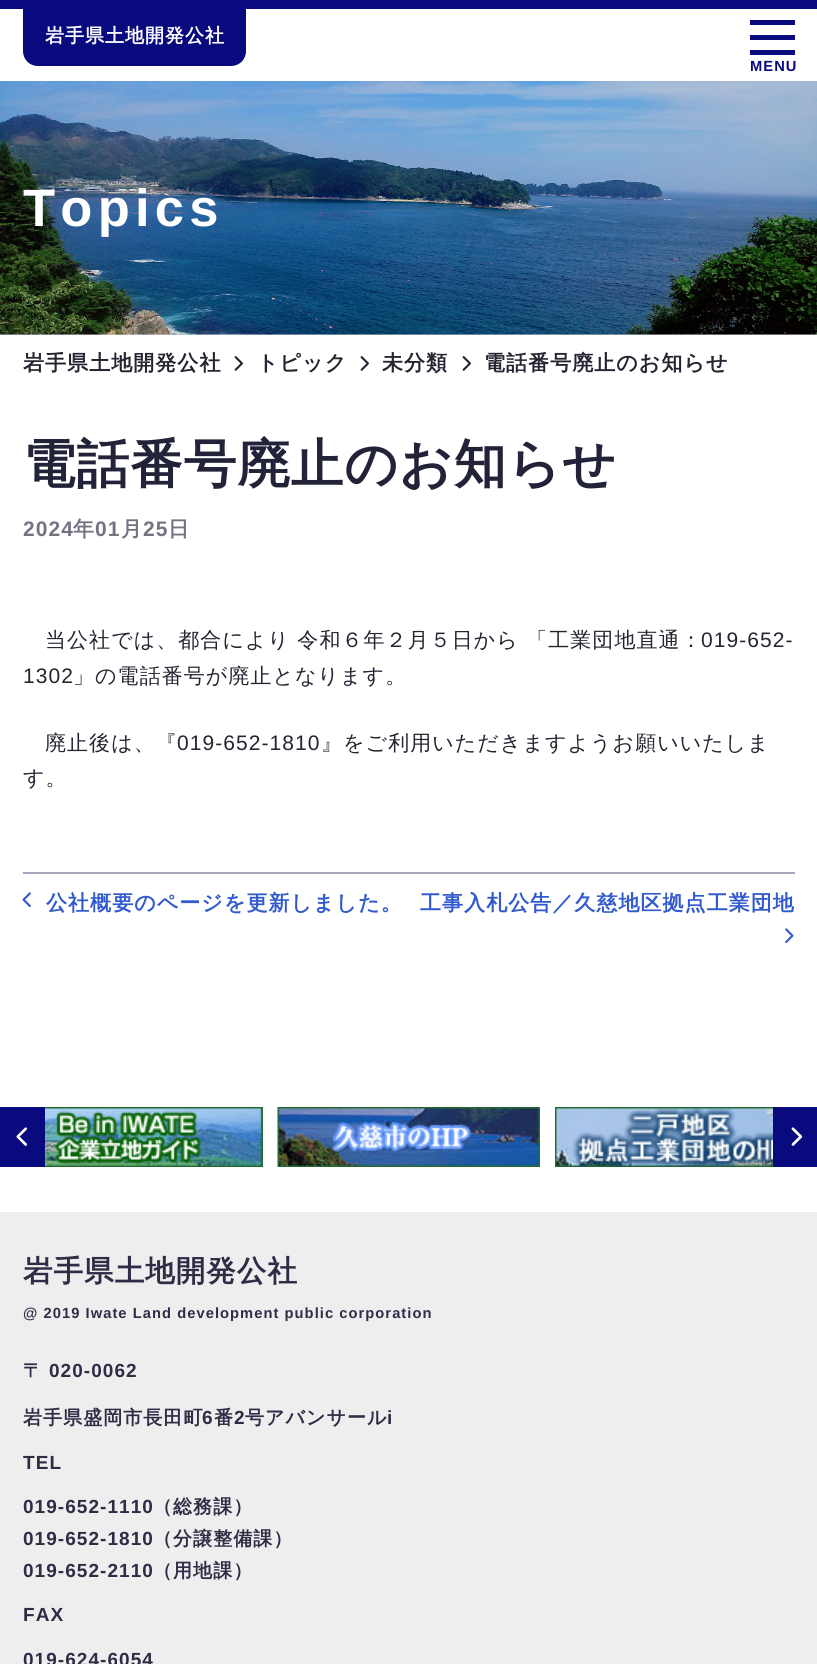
#include <cairo/cairo.h>
#include <math.h>
#include <stddef.h>


static void draw_spaced(cairo_t *cr, double x, double y, const char *s, double letter, double word) {
  cairo_move_to(cr, x, y);
  while (*s) {
    char ch[5] = {0};
    int n = 0;
    do ch[n++] = *s++; while ((*s & 0xC0) == 0x80);
    cairo_show_text(cr, ch);
    cairo_rel_move_to(cr, letter + word * (*ch == ' '), 0);
  }
}

static void draw_image(cairo_t *cr, const char *path, double x, double y, double w, double h) {
  cairo_surface_t *image = cairo_image_surface_create_from_png(path);
  cairo_save(cr);
  cairo_set_source_surface(cr, image, x, y);
  cairo_rectangle(cr, x, y, w, h);
  cairo_fill(cr);
  cairo_restore(cr);
  cairo_surface_destroy(image);
}

static void draw(cairo_t *cr) {
  cairo_set_source_rgb(cr, 1, 1, 1);
  cairo_paint(cr);
  cairo_set_source_rgb(cr, 10 / 255.0, 10 / 255.0, 127 / 255.0);
  cairo_rectangle(cr, 0, 0, 817, 9);
  cairo_fill(cr);
  cairo_new_path(cr);
  cairo_move_to(cr, 23, 9);
  cairo_line_to(cr, 246, 9);
  cairo_line_to(cr, 246, 51);
  cairo_curve_to(cr, 246, 59.5, 239.5, 66, 231, 66);
  cairo_line_to(cr, 38, 66);
  cairo_curve_to(cr, 29.5, 66, 23, 59.5, 23, 51);
  cairo_close_path(cr);
  cairo_fill(cr);
  cairo_rectangle(cr, 750, 20, 45, 5);
  cairo_fill(cr);
  cairo_rectangle(cr, 750, 35, 45, 5);
  cairo_fill(cr);
  cairo_rectangle(cr, 750, 50, 45, 5);
  cairo_fill(cr);
  cairo_set_source_rgb(cr, 208 / 255.0, 208 / 255.0, 221 / 255.0);
  cairo_rectangle(cr, 0, 334, 817, 1);
  cairo_fill(cr);
  draw_image(cr, "images/1.png", 0, 81, 817, 254);
  draw_image(cr, "images/2.png", 234, 356, 9, 15);
  draw_image(cr, "images/2.png", 360, 356, 9, 15);
  draw_image(cr, "images/2.png", 462, 356, 9, 15);
  cairo_set_source_rgb(cr, 165 / 255.0, 165 / 255.0, 187 / 255.0);
  cairo_rectangle(cr, 23, 872, 772, 2);
  cairo_fill(cr);
  draw_image(cr, "images/3.png", 22, 892, 9, 15);
  draw_image(cr, "images/4.png", 785, 928, 9, 15);
  cairo_set_source_rgb(cr, 10 / 255.0, 10 / 255.0, 127 / 255.0);
  cairo_rectangle(cr, 0, 1107, 45, 60);
  cairo_fill(cr);
  draw_image(cr, "images/5.png", 16, 1127, 11, 19);
  cairo_rectangle(cr, 773, 1107, 44, 60);
  cairo_fill(cr);
  draw_image(cr, "images/6.png", 791, 1127, 12, 19);
  draw_image(cr, "images/7.png", 45, 1107, 218, 60);
  draw_image(cr, "images/8.png", 277, 1107, 263, 60);
  draw_image(cr, "images/9.png", 555, 1107, 218, 60);
  cairo_set_source_rgb(cr, 238 / 255.0, 238 / 255.0, 238 / 255.0);
  cairo_rectangle(cr, 0, 1212, 817, 452);
  cairo_fill(cr);
  cairo_select_font_face(cr, "WenQuanYi Zen Hei", CAIRO_FONT_SLANT_NORMAL, CAIRO_FONT_WEIGHT_BOLD);
  cairo_set_font_size(cr, 19);
  cairo_set_source_rgb(cr, 1, 1, 1);
  draw_spaced(cr, 45, 42, "岩手県土地開発公社", 1, 0);
  cairo_select_font_face(cr, "Liberation Sans", CAIRO_FONT_SLANT_NORMAL, CAIRO_FONT_WEIGHT_BOLD);
  cairo_set_font_size(cr, 14.7);
  cairo_set_source_rgb(cr, 10 / 255.0, 10 / 255.0, 127 / 255.0);
  draw_spaced(cr, 750, 71, "MENU", 1.05, 0);
  cairo_set_font_size(cr, 52.5);
  cairo_set_source_rgb(cr, 1, 1, 1);
  draw_spaced(cr, 23, 226, "Topics", 5.25, 0);
  cairo_select_font_face(cr, "WenQuanYi Zen Hei", CAIRO_FONT_SLANT_NORMAL, CAIRO_FONT_WEIGHT_BOLD);
  cairo_set_font_size(cr, 21);
  cairo_set_source_rgb(cr, 38 / 255.0, 36 / 255.0, 49 / 255.0);
  draw_spaced(cr, 23, 370, "岩手県土地開発公社", 1.05, 0);
  draw_spaced(cr, 257, 370, "トピック", 1.05, 0);
  draw_spaced(cr, 382, 370, "未分類", 1.05, 0);
  draw_spaced(cr, 484, 370, "電話番号廃止のお知らせ", 1.05, 0);
  cairo_set_font_size(cr, 52.5);
  cairo_set_source_rgb(cr, 34 / 255.0, 34 / 255.0, 56 / 255.0);
  draw_spaced(cr, 23, 482, "電話番号廃止のお知らせ", 1.05, 0);
  cairo_select_font_face(cr, "Liberation Sans", CAIRO_FONT_SLANT_NORMAL, CAIRO_FONT_WEIGHT_BOLD);
  cairo_set_font_size(cr, 21);
  cairo_set_source_rgb(cr, 115 / 255.0, 115 / 255.0, 131 / 255.0);
  draw_spaced(cr, 23, 536, "2024", 1.05, 0);
  cairo_select_font_face(cr, "WenQuanYi Zen Hei", CAIRO_FONT_SLANT_NORMAL, CAIRO_FONT_WEIGHT_BOLD);
  draw_spaced(cr, 73, 536, "年", 1.05, 0);
  cairo_select_font_face(cr, "Liberation Sans", CAIRO_FONT_SLANT_NORMAL, CAIRO_FONT_WEIGHT_BOLD);
  draw_spaced(cr, 95, 536, "01", 1.05, 0);
  cairo_select_font_face(cr, "WenQuanYi Zen Hei", CAIRO_FONT_SLANT_NORMAL, CAIRO_FONT_WEIGHT_BOLD);
  draw_spaced(cr, 121, 536, "月", 1.05, 0);
  cairo_select_font_face(cr, "Liberation Sans", CAIRO_FONT_SLANT_NORMAL, CAIRO_FONT_WEIGHT_BOLD);
  draw_spaced(cr, 143, 536, "25", 1.05, 0);
  cairo_select_font_face(cr, "WenQuanYi Zen Hei", CAIRO_FONT_SLANT_NORMAL, CAIRO_FONT_WEIGHT_BOLD);
  draw_spaced(cr, 168, 536, "日", 1.05, 0);
  cairo_select_font_face(cr, "WenQuanYi Zen Hei Medium", CAIRO_FONT_SLANT_NORMAL, CAIRO_FONT_WEIGHT_NORMAL);
  cairo_set_source_rgb(cr, 38 / 255.0, 36 / 255.0, 49 / 255.0);
  draw_spaced(cr, 45, 647, "当公社では、都合により 令和６年２月５日から 「工業団地直通：", 1.05, 0);
  cairo_select_font_face(cr, "Liberation Sans", CAIRO_FONT_SLANT_NORMAL, CAIRO_FONT_WEIGHT_NORMAL);
  draw_spaced(cr, 701, 647, "019-652-", 1.05, 0);
  draw_spaced(cr, 23, 683, "1302", 1.05, 0);
  cairo_select_font_face(cr, "WenQuanYi Zen Hei Medium", CAIRO_FONT_SLANT_NORMAL, CAIRO_FONT_WEIGHT_NORMAL);
  draw_spaced(cr, 73, 683, "」の電話番号が廃止となります。", 1.05, 0);
  draw_spaced(cr, 45, 750, "廃止後は、『", 1.05, 0);
  cairo_select_font_face(cr, "Liberation Sans", CAIRO_FONT_SLANT_NORMAL, CAIRO_FONT_WEIGHT_NORMAL);
  draw_spaced(cr, 177, 750, "019-652-1810", 1.05, 0);
  cairo_select_font_face(cr, "WenQuanYi Zen Hei Medium", CAIRO_FONT_SLANT_NORMAL, CAIRO_FONT_WEIGHT_NORMAL);
  draw_spaced(cr, 321, 750, "』をご利用いただきますようお願いいたしま", 1.05, 0);
  draw_spaced(cr, 23, 785, "す。", 1.05, 0);
  cairo_select_font_face(cr, "WenQuanYi Zen Hei", CAIRO_FONT_SLANT_NORMAL, CAIRO_FONT_WEIGHT_BOLD);
  cairo_set_source_rgb(cr, 49 / 255.0, 90 / 255.0, 206 / 255.0);
  draw_spaced(cr, 46, 910, "公社概要のページを更新しました。", 1.05, 0);
  draw_spaced(cr, 420, 910, "工事入札公告／久慈地区拠点工業団地", 1.05, 0);
  cairo_set_font_size(cr, 29.5);
  cairo_set_source_rgb(cr, 48 / 255.0, 44 / 255.0, 70 / 255.0);
  draw_spaced(cr, 23, 1281, "岩手県土地開発公社", 1.05, 0);
  cairo_select_font_face(cr, "Liberation Sans", CAIRO_FONT_SLANT_NORMAL, CAIRO_FONT_WEIGHT_BOLD);
  cairo_set_font_size(cr, 14.7);
  draw_spaced(cr, 23, 1318, "@ 2019 Iwate Land development public corporation", 1.05, 0);
  cairo_select_font_face(cr, "WenQuanYi Zen Hei", CAIRO_FONT_SLANT_NORMAL, CAIRO_FONT_WEIGHT_BOLD);
  cairo_set_font_size(cr, 19);
  draw_spaced(cr, 23, 1377, "〒", 1.05, 0);
  cairo_select_font_face(cr, "Liberation Sans", CAIRO_FONT_SLANT_NORMAL, CAIRO_FONT_WEIGHT_BOLD);
  draw_spaced(cr, 49, 1377, "020-0062", 1.05, 0);
  cairo_select_font_face(cr, "WenQuanYi Zen Hei", CAIRO_FONT_SLANT_NORMAL, CAIRO_FONT_WEIGHT_BOLD);
  draw_spaced(cr, 23, 1424, "岩手県盛岡市長田町", 1.05, 0);
  cairo_select_font_face(cr, "Liberation Sans", CAIRO_FONT_SLANT_NORMAL, CAIRO_FONT_WEIGHT_BOLD);
  draw_spaced(cr, 202, 1424, "6", 1.05, 0);
  cairo_select_font_face(cr, "WenQuanYi Zen Hei", CAIRO_FONT_SLANT_NORMAL, CAIRO_FONT_WEIGHT_BOLD);
  draw_spaced(cr, 214, 1424, "番", 1.05, 0);
  cairo_select_font_face(cr, "Liberation Sans", CAIRO_FONT_SLANT_NORMAL, CAIRO_FONT_WEIGHT_BOLD);
  draw_spaced(cr, 234, 1424, "2", 1.05, 0);
  cairo_select_font_face(cr, "WenQuanYi Zen Hei", CAIRO_FONT_SLANT_NORMAL, CAIRO_FONT_WEIGHT_BOLD);
  draw_spaced(cr, 245, 1424, "号アバンサール", 1.05, 0);
  cairo_select_font_face(cr, "Liberation Sans", CAIRO_FONT_SLANT_NORMAL, CAIRO_FONT_WEIGHT_BOLD);
  draw_spaced(cr, 387, 1424, "i", 1.05, 0);
  draw_spaced(cr, 23, 1469, "TEL", 1.05, 0);
  draw_spaced(cr, 23, 1513, "019-652-1110", 1.05, 0);
  cairo_select_font_face(cr, "WenQuanYi Zen Hei", CAIRO_FONT_SLANT_NORMAL, CAIRO_FONT_WEIGHT_BOLD);
  draw_spaced(cr, 153, 1513, "（総務課）", 1.05, 0);
  cairo_select_font_face(cr, "Liberation Sans", CAIRO_FONT_SLANT_NORMAL, CAIRO_FONT_WEIGHT_BOLD);
  draw_spaced(cr, 23, 1545, "019-652-1810", 1.05, 0);
  cairo_select_font_face(cr, "WenQuanYi Zen Hei", CAIRO_FONT_SLANT_NORMAL, CAIRO_FONT_WEIGHT_BOLD);
  draw_spaced(cr, 153, 1545, "（分譲整備課）", 1.05, 0);
  cairo_select_font_face(cr, "Liberation Sans", CAIRO_FONT_SLANT_NORMAL, CAIRO_FONT_WEIGHT_BOLD);
  draw_spaced(cr, 23, 1577, "019-652-2110", 1.05, 0);
  cairo_select_font_face(cr, "WenQuanYi Zen Hei", CAIRO_FONT_SLANT_NORMAL, CAIRO_FONT_WEIGHT_BOLD);
  draw_spaced(cr, 153, 1577, "（用地課）", 1.05, 0);
  cairo_select_font_face(cr, "Liberation Sans", CAIRO_FONT_SLANT_NORMAL, CAIRO_FONT_WEIGHT_BOLD);
  draw_spaced(cr, 23, 1621, "FAX", 1.05, 0);
  draw_spaced(cr, 23, 1666, "019-624-6054", 1.05, 0);
}

int main(void) {
  cairo_surface_t *surface = cairo_image_surface_create(CAIRO_FORMAT_RGB24, 817, 1664);
  cairo_t *cr = cairo_create(surface);
  cairo_font_options_t *options = cairo_font_options_create();
  cairo_font_options_set_hint_metrics(options, CAIRO_HINT_METRICS_OFF);
  cairo_font_options_set_hint_style(options, CAIRO_HINT_STYLE_NONE);
  cairo_set_font_options(cr, options);
  cairo_set_miter_limit(cr, 4);
  draw(cr);
  cairo_surface_write_to_png(surface, "out.png");
  cairo_font_options_destroy(options);
  cairo_destroy(cr);
  cairo_surface_destroy(surface);
  return 0;
}
